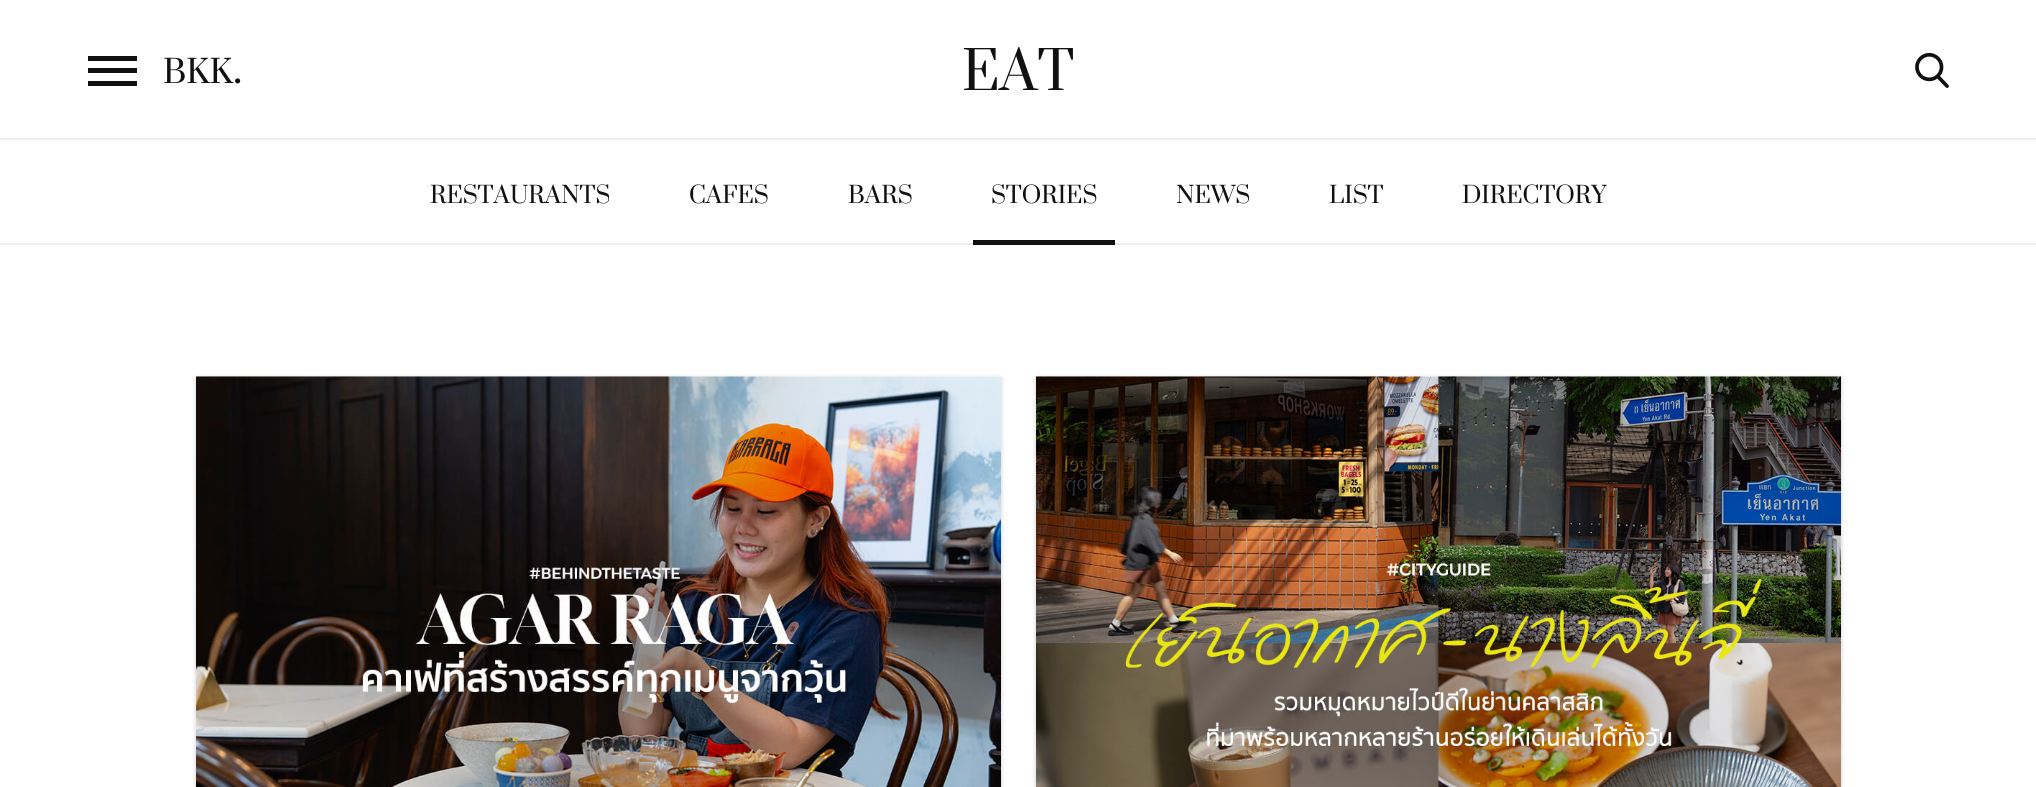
#include <cairo/cairo.h>
#include <math.h>
#include <stddef.h>


static void rounded_rect(cairo_t *cr, double x, double y, double w, double h, double r) {
  cairo_new_sub_path(cr);
  cairo_arc(cr, x + w - r, y + h - r, r, 0, M_PI / 2);
  cairo_arc(cr, x + r, y + h - r, r, M_PI / 2, M_PI);
  cairo_arc(cr, x + r, y + r, r, M_PI, 1.5 * M_PI);
  cairo_arc(cr, x + w - r, y + r, r, 1.5 * M_PI, 2 * M_PI);
  cairo_close_path(cr);
}

static void draw_shadow(cairo_t *cr, double x, double y, double w, double h, double r, double blur, double alpha) {
  cairo_push_group_with_content(cr, CAIRO_CONTENT_ALPHA);
  cairo_set_operator(cr, CAIRO_OPERATOR_SOURCE);
  for (int i = 15; i >= -15 && fmin(w, h) + blur * i / 3 > 0; i -= 2) {
    double e = blur * i / 6;
    cairo_set_source_rgba(cr, 0, 0, 0, alpha * erfc((i - 1) / 8.5) / 2);
    rounded_rect(cr, x - e, y - e, w + 2 * e, h + 2 * e, fmax(0, fmin(r + e + blur * .6, fmin(w, h) / 2 + e)));
    cairo_fill(cr);
  }
  cairo_pattern_t *soft = cairo_pop_group(cr);
  cairo_mask(cr, soft);
  cairo_pattern_destroy(soft);
}

static void draw_image(cairo_t *cr, const char *path, double x, double y, double w, double h) {
  cairo_surface_t *image = cairo_image_surface_create_from_png(path);
  cairo_save(cr);
  cairo_set_source_surface(cr, image, x, y);
  cairo_rectangle(cr, x, y, w, h);
  cairo_fill(cr);
  cairo_restore(cr);
  cairo_surface_destroy(image);
}

static void draw(cairo_t *cr) {
  cairo_set_source_rgb(cr, 1, 1, 1);
  cairo_paint(cr);
  cairo_set_source_rgb(cr, 238 / 255.0, 238 / 255.0, 238 / 255.0);
  cairo_rectangle(cr, 0, 138, 2036, 2);
  cairo_fill(cr);
  cairo_set_source_rgb(cr, 17 / 255.0, 17 / 255.0, 17 / 255.0);
  cairo_rectangle(cr, 88, 56, 49, 5);
  cairo_fill(cr);
  cairo_rectangle(cr, 88, 68, 49, 5);
  cairo_fill(cr);
  cairo_rectangle(cr, 88, 81, 49, 5);
  cairo_fill(cr);
  draw_image(cr, "images/1.png", 1915, 52, 34, 36);
  cairo_set_source_rgb(cr, 238 / 255.0, 238 / 255.0, 238 / 255.0);
  cairo_rectangle(cr, 0, 243, 2036, 2);
  cairo_fill(cr);
  cairo_set_source_rgb(cr, 17 / 255.0, 17 / 255.0, 17 / 255.0);
  cairo_rectangle(cr, 973, 240, 142, 5);
  cairo_fill(cr);
  cairo_set_source_rgb(cr, 0, 0, 0);
  draw_shadow(cr, 196, 378, 805, 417, 0, 2.5, 0.2);
  cairo_set_source_rgb(cr, 1, 1, 1);
  cairo_rectangle(cr, 196, 376, 805, 1);
  cairo_fill(cr);
  draw_image(cr, "images/2.png", 196, 376, 805, 411);
  cairo_set_source_rgb(cr, 0, 0, 0);
  draw_shadow(cr, 1036, 378, 805, 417, 0, 2.5, 0.2);
  cairo_set_source_rgb(cr, 1, 1, 1);
  cairo_rectangle(cr, 1036, 376, 805, 1);
  cairo_fill(cr);
  draw_image(cr, "images/3.png", 1036, 376, 805, 411);
  cairo_select_font_face(cr, "prata", CAIRO_FONT_SLANT_NORMAL, CAIRO_FONT_WEIGHT_NORMAL);
  cairo_set_font_size(cr, 31.5);
  cairo_set_source_rgb(cr, 17 / 255.0, 17 / 255.0, 17 / 255.0);
  cairo_move_to(cr, 163, 83);
  cairo_show_text(cr, "BKK");
  cairo_set_font_size(cr, 43);
  cairo_move_to(cr, 233, 83);
  cairo_show_text(cr, ".");
  cairo_set_font_size(cr, 52.5);
  cairo_move_to(cr, 962, 90);
  cairo_show_text(cr, "EAT");
  cairo_set_font_size(cr, 22.75);
  cairo_move_to(cr, 430, 203);
  cairo_show_text(cr, "RESTAURANTS");
  cairo_move_to(cr, 689, 203);
  cairo_show_text(cr, "CAFES");
  cairo_move_to(cr, 848, 203);
  cairo_show_text(cr, "BARS");
  cairo_move_to(cr, 991, 203);
  cairo_show_text(cr, "STORIES");
  cairo_move_to(cr, 1176, 203);
  cairo_show_text(cr, "NEWS");
  cairo_move_to(cr, 1329, 203);
  cairo_show_text(cr, "LIST");
  cairo_move_to(cr, 1462, 203);
  cairo_show_text(cr, "DIRECTORY");
}

int main(void) {
  cairo_surface_t *surface = cairo_image_surface_create(CAIRO_FORMAT_RGB24, 2036, 787);
  cairo_t *cr = cairo_create(surface);
  cairo_font_options_t *options = cairo_font_options_create();
  cairo_font_options_set_hint_metrics(options, CAIRO_HINT_METRICS_OFF);
  cairo_font_options_set_hint_style(options, CAIRO_HINT_STYLE_NONE);
  cairo_set_font_options(cr, options);
  cairo_set_miter_limit(cr, 4);
  draw(cr);
  cairo_surface_write_to_png(surface, "out.png");
  cairo_font_options_destroy(options);
  cairo_destroy(cr);
  cairo_surface_destroy(surface);
  return 0;
}
